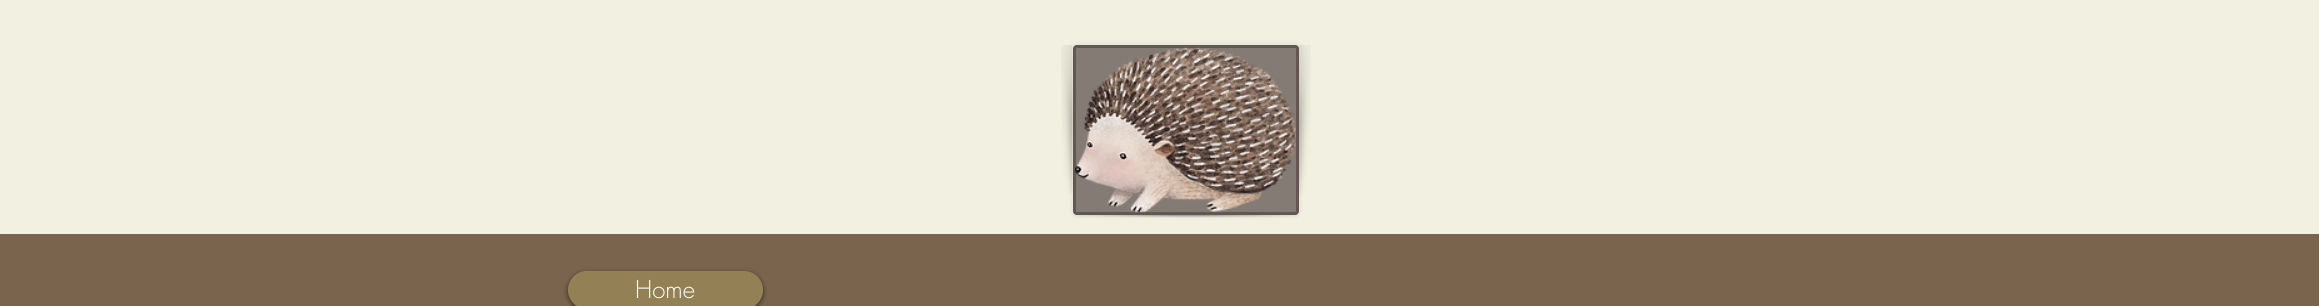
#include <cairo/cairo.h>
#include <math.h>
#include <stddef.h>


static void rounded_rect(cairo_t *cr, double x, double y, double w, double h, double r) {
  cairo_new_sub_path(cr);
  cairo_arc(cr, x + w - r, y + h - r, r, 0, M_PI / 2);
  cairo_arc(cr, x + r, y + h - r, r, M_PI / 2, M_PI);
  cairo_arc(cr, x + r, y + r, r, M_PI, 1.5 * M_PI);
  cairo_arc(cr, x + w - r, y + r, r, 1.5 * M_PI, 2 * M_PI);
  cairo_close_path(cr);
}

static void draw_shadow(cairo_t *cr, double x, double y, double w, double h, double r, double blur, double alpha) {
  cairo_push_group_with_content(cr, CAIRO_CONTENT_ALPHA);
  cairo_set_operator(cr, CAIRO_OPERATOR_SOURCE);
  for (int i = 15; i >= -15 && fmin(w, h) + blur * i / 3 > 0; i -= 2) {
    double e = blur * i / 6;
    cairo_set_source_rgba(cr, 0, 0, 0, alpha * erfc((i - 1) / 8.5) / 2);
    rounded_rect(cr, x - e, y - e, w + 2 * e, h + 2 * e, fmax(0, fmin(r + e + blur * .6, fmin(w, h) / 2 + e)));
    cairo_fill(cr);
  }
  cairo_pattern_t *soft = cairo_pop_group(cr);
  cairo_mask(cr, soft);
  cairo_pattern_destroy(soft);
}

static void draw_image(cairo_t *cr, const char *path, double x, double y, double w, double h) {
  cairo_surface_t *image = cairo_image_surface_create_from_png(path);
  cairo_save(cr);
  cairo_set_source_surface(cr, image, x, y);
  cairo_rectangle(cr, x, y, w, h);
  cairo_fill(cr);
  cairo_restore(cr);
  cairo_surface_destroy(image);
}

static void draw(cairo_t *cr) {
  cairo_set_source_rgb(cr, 122 / 255.0, 100 / 255.0, 78 / 255.0);
  cairo_paint(cr);
  cairo_set_source_rgb(cr, 242 / 255.0, 240 / 255.0, 225 / 255.0);
  cairo_rectangle(cr, 0, 0, 2319, 234);
  cairo_fill(cr);
  cairo_save(cr);
  cairo_set_fill_rule(cr, CAIRO_FILL_RULE_EVEN_ODD);
  cairo_new_path(cr);
  cairo_move_to(cr, 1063, 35);
  cairo_line_to(cr, 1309, 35);
  cairo_line_to(cr, 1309, 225);
  cairo_line_to(cr, 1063, 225);
  cairo_close_path(cr);
  cairo_move_to(cr, 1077, 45);
  cairo_line_to(cr, 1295, 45);
  cairo_curve_to(cr, 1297, 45, 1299, 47, 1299, 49);
  cairo_line_to(cr, 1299, 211);
  cairo_curve_to(cr, 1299, 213, 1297, 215, 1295, 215);
  cairo_line_to(cr, 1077, 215);
  cairo_curve_to(cr, 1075, 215, 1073, 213, 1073, 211);
  cairo_line_to(cr, 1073, 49);
  cairo_curve_to(cr, 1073, 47, 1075, 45, 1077, 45);
  cairo_close_path(cr);
  cairo_clip(cr);
  cairo_set_source_rgb(cr, 0, 0, 0);
  draw_shadow(cr, 1073, 45, 226, 170, 4, 3, 0.1);
  cairo_restore(cr);
  cairo_set_source_rgba(cr, 83 / 255.0, 71 / 255.0, 69 / 255.0, 0.69);
  rounded_rect(cr, 1073, 45, 226, 170, 4);
  cairo_fill(cr);
  rounded_rect(cr, 1074.5, 46.5, 223, 167, 2.5);
  cairo_set_line_width(cr, 3);
  cairo_stroke(cr);
  draw_image(cr, "images/1.png", 1075, 47, 221, 166);
  draw_image(cr, "images/2.png", 1073, 215, 226, 3);
  draw_image(cr, "images/3.png", 1061, 45, 12, 150);
  draw_image(cr, "images/4.png", 1298, 45, 13, 151);
  cairo_save(cr);
  cairo_set_fill_rule(cr, CAIRO_FILL_RULE_EVEN_ODD);
  cairo_new_path(cr);
  cairo_move_to(cr, 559, 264);
  cairo_line_to(cr, 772, 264);
  cairo_line_to(cr, 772, 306);
  cairo_line_to(cr, 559, 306);
  cairo_close_path(cr);
  cairo_move_to(cr, 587, 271);
  cairo_line_to(cr, 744, 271);
  cairo_curve_to(cr, 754.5, 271, 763, 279.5, 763, 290);
  cairo_curve_to(cr, 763, 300.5, 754.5, 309, 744, 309);
  cairo_line_to(cr, 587, 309);
  cairo_curve_to(cr, 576.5, 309, 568, 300.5, 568, 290);
  cairo_curve_to(cr, 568, 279.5, 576.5, 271, 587, 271);
  cairo_close_path(cr);
  cairo_clip(cr);
  cairo_set_source_rgb(cr, 0, 0, 0);
  draw_shadow(cr, 568, 273, 195, 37, 18.5, 2.5, 0.6);
  cairo_restore(cr);
  cairo_set_source_rgba(cr, 228 / 255.0, 219 / 255.0, 109 / 255.0, 0.24);
  rounded_rect(cr, 568, 271, 195, 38, 19);
  cairo_fill(cr);
  cairo_select_font_face(cr, "futura Light", CAIRO_FONT_SLANT_NORMAL, CAIRO_FONT_WEIGHT_NORMAL);
  cairo_set_font_size(cr, 24);
  cairo_set_source_rgb(cr, 1, 1, 1);
  cairo_move_to(cr, 635, 298);
  cairo_show_text(cr, "Home");
}

int main(void) {
  cairo_surface_t *surface = cairo_image_surface_create(CAIRO_FORMAT_RGB24, 2319, 306);
  cairo_t *cr = cairo_create(surface);
  cairo_font_options_t *options = cairo_font_options_create();
  cairo_font_options_set_hint_metrics(options, CAIRO_HINT_METRICS_OFF);
  cairo_font_options_set_hint_style(options, CAIRO_HINT_STYLE_NONE);
  cairo_set_font_options(cr, options);
  cairo_set_miter_limit(cr, 4);
  draw(cr);
  cairo_surface_write_to_png(surface, "out.png");
  cairo_font_options_destroy(options);
  cairo_destroy(cr);
  cairo_surface_destroy(surface);
  return 0;
}
